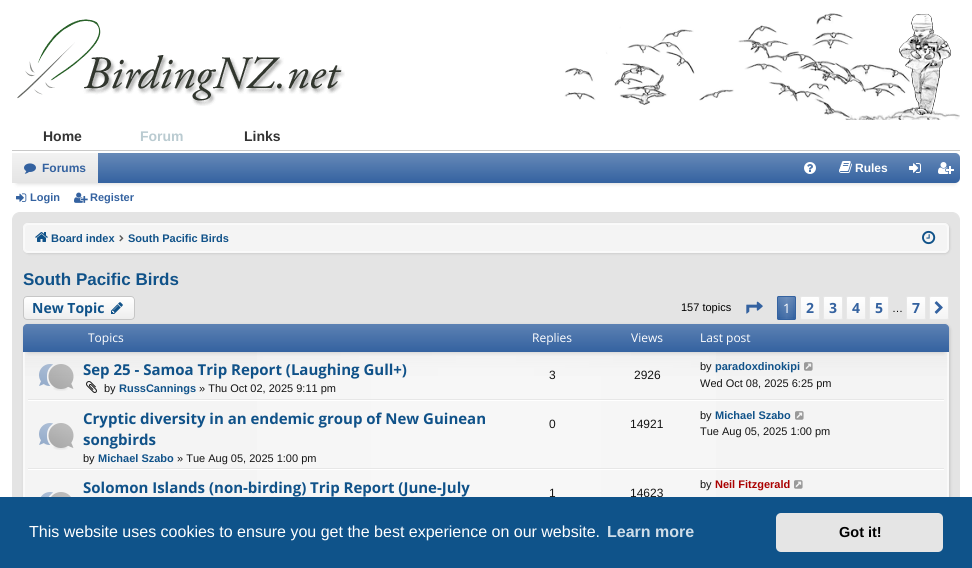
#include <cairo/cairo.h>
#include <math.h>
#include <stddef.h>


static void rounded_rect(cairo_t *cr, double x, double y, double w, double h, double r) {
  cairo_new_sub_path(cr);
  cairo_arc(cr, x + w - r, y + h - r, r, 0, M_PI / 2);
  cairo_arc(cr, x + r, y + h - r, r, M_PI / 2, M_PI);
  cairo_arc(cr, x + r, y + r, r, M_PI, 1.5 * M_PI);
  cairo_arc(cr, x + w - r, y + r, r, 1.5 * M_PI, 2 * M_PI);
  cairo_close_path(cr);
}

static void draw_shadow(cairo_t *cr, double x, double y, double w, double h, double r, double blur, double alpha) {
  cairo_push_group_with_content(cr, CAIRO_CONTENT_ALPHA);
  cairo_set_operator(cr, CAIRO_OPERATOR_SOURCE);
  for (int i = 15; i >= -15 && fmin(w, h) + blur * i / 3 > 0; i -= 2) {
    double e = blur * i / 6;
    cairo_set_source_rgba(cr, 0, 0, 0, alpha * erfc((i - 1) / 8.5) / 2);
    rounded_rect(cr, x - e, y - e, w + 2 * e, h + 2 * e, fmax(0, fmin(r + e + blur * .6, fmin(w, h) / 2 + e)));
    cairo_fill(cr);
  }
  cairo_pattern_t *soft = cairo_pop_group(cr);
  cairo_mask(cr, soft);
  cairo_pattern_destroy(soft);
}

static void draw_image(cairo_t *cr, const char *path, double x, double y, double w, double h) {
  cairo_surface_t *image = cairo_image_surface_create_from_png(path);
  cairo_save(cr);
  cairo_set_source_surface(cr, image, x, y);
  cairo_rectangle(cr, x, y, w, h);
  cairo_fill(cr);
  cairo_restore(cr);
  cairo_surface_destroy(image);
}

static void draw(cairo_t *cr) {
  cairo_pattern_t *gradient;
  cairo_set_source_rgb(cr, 1, 1, 1);
  cairo_paint(cr);
  draw_image(cr, "images/1.png", 17, 19, 328, 87);
  draw_image(cr, "images/2.png", 564, 13, 396, 107);
  cairo_set_source_rgb(cr, 200 / 255.0, 200 / 255.0, 200 / 255.0);
  cairo_rectangle(cr, 12, 150, 948, 1);
  cairo_fill(cr);
  cairo_set_source_rgb(cr, 0, 0, 0);
  draw_shadow(cr, 17, 163, 938, 20, 0, 2.5, 0.2);
  cairo_set_source_rgb(cr, 52 / 255.0, 98 / 255.0, 160 / 255.0);
  rounded_rect(cr, 12, 153, 948, 30, 5);
  cairo_fill(cr);
  gradient = cairo_pattern_create_linear(486, 153, 486, 183);
  cairo_pattern_add_color_stop_rgba(gradient, 0, 1, 1, 1, 0.25);
  cairo_pattern_add_color_stop_rgba(gradient, 1, 1, 1, 1, 0);
  cairo_set_source(cr, gradient);
  cairo_pattern_destroy(gradient);
  rounded_rect(cr, 12, 153, 948, 30, 5);
  cairo_fill(cr);
  gradient = cairo_pattern_create_linear(55, 153, 55, 183);
  cairo_pattern_add_color_stop_rgba(gradient, 0, 242 / 255.0, 242 / 255.0, 242 / 255.0, 1);
  cairo_pattern_add_color_stop_rgba(gradient, 1, 228 / 255.0, 228 / 255.0, 228 / 255.0, 1);
  cairo_set_source(cr, gradient);
  cairo_pattern_destroy(gradient);
  cairo_rectangle(cr, 12, 153, 86, 30);
  cairo_fill(cr);
  draw_image(cr, "images/3.png", 24, 163, 12, 11);
  draw_image(cr, "images/4.png", 804, 162, 12, 12);
  draw_image(cr, "images/5.png", 839, 161, 13, 12);
  draw_image(cr, "images/6.png", 909, 163, 12, 10);
  draw_image(cr, "images/7.png", 938, 162, 16, 12);
  draw_image(cr, "images/8.png", 16, 193, 11, 9);
  draw_image(cr, "images/9.png", 74, 192, 14, 11);
  cairo_set_source_rgb(cr, 228 / 255.0, 228 / 255.0, 228 / 255.0);
  rounded_rect(cr, 12.5, 212.5, 947, 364, 7.5);
  cairo_fill_preserve(cr);
  cairo_set_line_width(cr, 1);
  cairo_stroke(cr);
  cairo_set_source_rgb(cr, 0, 0, 0);
  draw_shadow(cr, 24, 224, 926, 30, 5, 1, 0.1);
  cairo_set_source_rgb(cr, 244 / 255.0, 244 / 255.0, 244 / 255.0);
  rounded_rect(cr, 23, 223, 926, 30, 5);
  cairo_fill(cr);
  rounded_rect(cr, 24.5, 224.5, 923, 27, 3.5);
  cairo_set_source_rgb(cr, 250 / 255.0, 250 / 255.0, 250 / 255.0);
  cairo_stroke(cr);
  rounded_rect(cr, 23.5, 223.5, 925, 29, 4.5);
  cairo_set_source_rgb(cr, 249 / 255.0, 249 / 255.0, 249 / 255.0);
  cairo_stroke(cr);
  draw_image(cr, "images/10.png", 35, 232, 13, 10);
  draw_image(cr, "images/11.png", 119, 235, 5, 7);
  draw_image(cr, "images/12.png", 922, 230, 14, 15);
  cairo_set_source_rgb(cr, 0, 0, 0);
  draw_shadow(cr, 24, 325, 926, 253, 5, 1.5, 0.15);
  cairo_set_source_rgb(cr, 238 / 255.0, 238 / 255.0, 238 / 255.0);
  rounded_rect(cr, 23, 296, 112, 24, 4);
  cairo_fill(cr);
  cairo_save(cr);
  rounded_rect(cr, 23, 296, 112, 24, 4);
  cairo_clip(cr);
  gradient = cairo_pattern_create_linear(79, 297, 79, 319);
  cairo_pattern_add_color_stop_rgba(gradient, 0, 1, 1, 1, 1);
  cairo_pattern_add_color_stop_rgba(gradient, 1, 1, 1, 1, 0);
  cairo_set_source(cr, gradient);
  cairo_pattern_destroy(gradient);
  cairo_rectangle(cr, 23, 297, 112, 22);
  cairo_fill(cr);
  cairo_restore(cr);
  rounded_rect(cr, 23.5, 296.5, 111, 23, 3.5);
  cairo_set_source_rgb(cr, 198 / 255.0, 198 / 255.0, 198 / 255.0);
  cairo_stroke(cr);
  draw_image(cr, "images/13.png", 111, 302, 12, 12);
  draw_image(cr, "images/14.png", 746, 301, 17, 13);
  cairo_set_source_rgb(cr, 52 / 255.0, 98 / 255.0, 160 / 255.0);
  rounded_rect(cr, 777, 296, 19, 24, 2);
  cairo_fill(cr);
  gradient = cairo_pattern_create_linear(778, 308, 795, 308);
  cairo_pattern_add_color_stop_rgba(gradient, 0, 1, 1, 1, 0);
  cairo_pattern_add_color_stop_rgba(gradient, 0.5, 1, 1, 1, 0.1);
  cairo_pattern_add_color_stop_rgba(gradient, 1, 1, 1, 1, 0);
  cairo_set_source(cr, gradient);
  cairo_pattern_destroy(gradient);
  cairo_rectangle(cr, 780, 297, 13, 22);
  cairo_fill(cr);
  gradient = cairo_pattern_create_linear(787, 297, 787, 319);
  cairo_pattern_add_color_stop_rgba(gradient, 0, 1, 1, 1, 0.2);
  cairo_pattern_add_color_stop_rgba(gradient, 1, 1, 1, 1, 0);
  cairo_set_source(cr, gradient);
  cairo_pattern_destroy(gradient);
  cairo_rectangle(cr, 777, 297, 19, 20);
  cairo_fill(cr);
  rounded_rect(cr, 777.5, 296.5, 18, 23, 1.5);
  cairo_set_source_rgb(cr, 52 / 255.0, 98 / 255.0, 160 / 255.0);
  cairo_stroke(cr);
  cairo_save(cr);
  rounded_rect(cr, 800, 296, 20, 24, 2);
  cairo_clip(cr);
  gradient = cairo_pattern_create_linear(810, 297, 810, 319);
  cairo_pattern_add_color_stop_rgba(gradient, 0, 1, 1, 1, 1);
  cairo_pattern_add_color_stop_rgba(gradient, 1, 244 / 255.0, 244 / 255.0, 244 / 255.0, 1);
  cairo_set_source(cr, gradient);
  cairo_pattern_destroy(gradient);
  cairo_rectangle(cr, 800, 297, 20, 22);
  cairo_fill(cr);
  cairo_restore(cr);
  rounded_rect(cr, 800.5, 296.5, 19, 23, 1.5);
  cairo_set_source_rgb(cr, 231 / 255.0, 231 / 255.0, 231 / 255.0);
  cairo_stroke(cr);
  cairo_save(cr);
  rounded_rect(cr, 823, 296, 20, 24, 2);
  cairo_clip(cr);
  gradient = cairo_pattern_create_linear(833, 297, 833, 319);
  cairo_pattern_add_color_stop_rgba(gradient, 0, 1, 1, 1, 1);
  cairo_pattern_add_color_stop_rgba(gradient, 1, 244 / 255.0, 244 / 255.0, 244 / 255.0, 1);
  cairo_set_source(cr, gradient);
  cairo_pattern_destroy(gradient);
  cairo_rectangle(cr, 823, 297, 20, 22);
  cairo_fill(cr);
  cairo_restore(cr);
  rounded_rect(cr, 823.5, 296.5, 19, 23, 1.5);
  cairo_stroke(cr);
  cairo_save(cr);
  rounded_rect(cr, 846, 296, 20, 24, 2);
  cairo_clip(cr);
  gradient = cairo_pattern_create_linear(856, 297, 856, 319);
  cairo_pattern_add_color_stop_rgba(gradient, 0, 1, 1, 1, 1);
  cairo_pattern_add_color_stop_rgba(gradient, 1, 244 / 255.0, 244 / 255.0, 244 / 255.0, 1);
  cairo_set_source(cr, gradient);
  cairo_pattern_destroy(gradient);
  cairo_rectangle(cr, 846, 297, 20, 22);
  cairo_fill(cr);
  cairo_restore(cr);
  rounded_rect(cr, 846.5, 296.5, 19, 23, 1.5);
  cairo_stroke(cr);
  cairo_save(cr);
  rounded_rect(cr, 869, 296, 20, 24, 2);
  cairo_clip(cr);
  gradient = cairo_pattern_create_linear(879, 297, 879, 319);
  cairo_pattern_add_color_stop_rgba(gradient, 0, 1, 1, 1, 1);
  cairo_pattern_add_color_stop_rgba(gradient, 1, 244 / 255.0, 244 / 255.0, 244 / 255.0, 1);
  cairo_set_source(cr, gradient);
  cairo_pattern_destroy(gradient);
  cairo_rectangle(cr, 869, 297, 20, 22);
  cairo_fill(cr);
  cairo_restore(cr);
  rounded_rect(cr, 869.5, 296.5, 19, 23, 1.5);
  cairo_stroke(cr);
  cairo_save(cr);
  rounded_rect(cr, 906, 296, 20, 24, 2);
  cairo_clip(cr);
  gradient = cairo_pattern_create_linear(916, 297, 916, 319);
  cairo_pattern_add_color_stop_rgba(gradient, 0, 1, 1, 1, 1);
  cairo_pattern_add_color_stop_rgba(gradient, 1, 244 / 255.0, 244 / 255.0, 244 / 255.0, 1);
  cairo_set_source(cr, gradient);
  cairo_pattern_destroy(gradient);
  cairo_rectangle(cr, 906, 297, 20, 22);
  cairo_fill(cr);
  cairo_restore(cr);
  rounded_rect(cr, 906.5, 296.5, 19, 23, 1.5);
  cairo_stroke(cr);
  cairo_save(cr);
  rounded_rect(cr, 929, 296, 20, 24, 2);
  cairo_clip(cr);
  gradient = cairo_pattern_create_linear(939, 297, 939, 319);
  cairo_pattern_add_color_stop_rgba(gradient, 0, 1, 1, 1, 1);
  cairo_pattern_add_color_stop_rgba(gradient, 1, 244 / 255.0, 244 / 255.0, 244 / 255.0, 1);
  cairo_set_source(cr, gradient);
  cairo_pattern_destroy(gradient);
  cairo_rectangle(cr, 929, 297, 20, 22);
  cairo_fill(cr);
  cairo_restore(cr);
  rounded_rect(cr, 929.5, 296.5, 19, 23, 1.5);
  cairo_stroke(cr);
  draw_image(cr, "images/15.png", 934, 301, 9, 13);
  cairo_set_source_rgb(cr, 244 / 255.0, 244 / 255.0, 244 / 255.0);
  rounded_rect(cr, 23, 324, 926, 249, 5);
  cairo_fill(cr);
  cairo_save(cr);
  rounded_rect(cr, 23, 324, 926, 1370, 5);
  cairo_clip(cr);
  gradient = cairo_pattern_create_linear(486, 325, 486, 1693);
  cairo_pattern_add_color_stop_rgba(gradient, 0, 204 / 255.0, 204 / 255.0, 204 / 255.0, 0.2);
  cairo_pattern_add_color_stop_rgba(gradient, 0.01, 204 / 255.0, 204 / 255.0, 204 / 255.0, 0.25);
  cairo_pattern_add_color_stop_rgba(gradient, 0.04, 204 / 255.0, 204 / 255.0, 204 / 255.0, 0);
  cairo_set_source(cr, gradient);
  cairo_pattern_destroy(gradient);
  cairo_rectangle(cr, 23, 325, 926, 51);
  cairo_fill(cr);
  cairo_restore(cr);
  gradient = cairo_pattern_create_linear(24, 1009, 948, 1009);
  cairo_pattern_add_color_stop_rgba(gradient, 0, 1, 1, 1, 0);
  cairo_pattern_add_color_stop_rgba(gradient, 0.5, 1, 1, 1, 0.3);
  cairo_pattern_add_color_stop_rgba(gradient, 1, 1, 1, 1, 0);
  cairo_set_source(cr, gradient);
  cairo_pattern_destroy(gradient);
  cairo_rectangle(cr, 257, 352, 459, 145);
  cairo_fill(cr);
  rounded_rect(cr, 24.5, 325.5, 923, 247, 3.5);
  cairo_set_source_rgba(cr, 1, 1, 1, 0.5);
  cairo_stroke(cr);
  rounded_rect(cr, 23.5, 324.5, 925, 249, 4.5);
  cairo_set_source_rgb(cr, 249 / 255.0, 249 / 255.0, 249 / 255.0);
  cairo_stroke(cr);
  cairo_set_source_rgb(cr, 0, 0, 0);
  draw_shadow(cr, 28, 334, 916, 18, 0, 2.5, 0.2);
  cairo_set_source_rgb(cr, 52 / 255.0, 98 / 255.0, 160 / 255.0);
  cairo_new_path(cr);
  cairo_move_to(cr, 27, 324);
  cairo_line_to(cr, 945, 324);
  cairo_curve_to(cr, 947, 324, 949, 326, 949, 328);
  cairo_line_to(cr, 949, 352);
  cairo_line_to(cr, 23, 352);
  cairo_line_to(cr, 23, 328);
  cairo_curve_to(cr, 23, 326, 25, 324, 27, 324);
  cairo_close_path(cr);
  cairo_fill(cr);
  gradient = cairo_pattern_create_linear(486, 324, 486, 352);
  cairo_pattern_add_color_stop_rgba(gradient, 0, 1, 1, 1, 0.2);
  cairo_pattern_add_color_stop_rgba(gradient, 1, 1, 1, 1, 0);
  cairo_set_source(cr, gradient);
  cairo_pattern_destroy(gradient);
  cairo_new_path(cr);
  cairo_move_to(cr, 27, 324);
  cairo_line_to(cr, 945, 324);
  cairo_curve_to(cr, 947, 324, 949, 326, 949, 328);
  cairo_line_to(cr, 949, 352);
  cairo_line_to(cr, 23, 352);
  cairo_line_to(cr, 23, 328);
  cairo_curve_to(cr, 23, 326, 25, 324, 27, 324);
  cairo_close_path(cr);
  cairo_fill(cr);
  cairo_set_source_rgb(cr, 231 / 255.0, 231 / 255.0, 231 / 255.0);
  cairo_rectangle(cr, 28, 399, 916, 1);
  cairo_fill(cr);
  draw_image(cr, "images/16.png", 39, 364, 35, 27);
  draw_image(cr, "images/17.png", 86, 381, 11, 12);
  draw_image(cr, "images/18.png", 804, 362, 9, 9);
  cairo_set_source_rgb(cr, 1, 1, 1);
  cairo_rectangle(cr, 28, 400, 916, 1);
  cairo_fill(cr);
  cairo_set_source_rgb(cr, 231 / 255.0, 231 / 255.0, 231 / 255.0);
  cairo_rectangle(cr, 28, 468, 916, 1);
  cairo_fill(cr);
  draw_image(cr, "images/19.png", 39, 423, 35, 27);
  draw_image(cr, "images/20.png", 795, 411, 9, 9);
  cairo_set_source_rgb(cr, 1, 1, 1);
  cairo_rectangle(cr, 28, 469, 916, 1);
  cairo_fill(cr);
  draw_image(cr, "images/21.png", 41, 492, 30, 5);
  draw_image(cr, "images/20.png", 794, 480, 9, 9);
  cairo_select_font_face(cr, "Liberation Sans", CAIRO_FONT_SLANT_NORMAL, CAIRO_FONT_WEIGHT_BOLD);
  cairo_set_font_size(cr, 14);
  cairo_set_source_rgb(cr, 51 / 255.0, 51 / 255.0, 51 / 255.0);
  cairo_move_to(cr, 43, 141);
  cairo_show_text(cr, "Home");
  cairo_set_source_rgb(cr, 186 / 255.0, 203 / 255.0, 209 / 255.0);
  cairo_move_to(cr, 140, 141);
  cairo_show_text(cr, "Forum");
  cairo_set_source_rgb(cr, 51 / 255.0, 51 / 255.0, 51 / 255.0);
  cairo_move_to(cr, 244, 141);
  cairo_show_text(cr, "Links");
  cairo_set_font_size(cr, 12);
  cairo_set_source_rgb(cr, 52 / 255.0, 98 / 255.0, 160 / 255.0);
  cairo_move_to(cr, 42, 172);
  cairo_show_text(cr, "Forums");
  cairo_set_source_rgb(cr, 1, 1, 1);
  cairo_move_to(cr, 855, 172);
  cairo_show_text(cr, "Rules");
  cairo_set_font_size(cr, 11);
  cairo_set_source_rgb(cr, 52 / 255.0, 98 / 255.0, 160 / 255.0);
  cairo_move_to(cr, 30, 201);
  cairo_show_text(cr, "Login");
  cairo_move_to(cr, 90, 201);
  cairo_show_text(cr, "Register");
  cairo_set_source_rgb(cr, 16 / 255.0, 82 / 255.0, 137 / 255.0);
  cairo_move_to(cr, 51, 242);
  cairo_show_text(cr, "Board index");
  cairo_move_to(cr, 128, 242);
  cairo_show_text(cr, "South Pacific Birds");
  cairo_set_font_size(cr, 17);
  cairo_move_to(cr, 23, 285);
  cairo_show_text(cr, "South Pacific Birds");
  cairo_select_font_face(cr, "Open Sans", CAIRO_FONT_SLANT_NORMAL, CAIRO_FONT_WEIGHT_BOLD);
  cairo_set_font_size(cr, 14);
  cairo_move_to(cr, 32, 313);
  cairo_show_text(cr, "New Topic");
  cairo_select_font_face(cr, "Liberation Sans", CAIRO_FONT_SLANT_NORMAL, CAIRO_FONT_WEIGHT_NORMAL);
  cairo_set_font_size(cr, 11);
  cairo_set_source_rgb(cr, 0, 0, 0);
  cairo_move_to(cr, 681, 311);
  cairo_show_text(cr, "157 topics");
  cairo_select_font_face(cr, "Open Sans", CAIRO_FONT_SLANT_NORMAL, CAIRO_FONT_WEIGHT_NORMAL);
  cairo_set_font_size(cr, 13);
  cairo_set_source_rgb(cr, 1, 1, 1);
  cairo_move_to(cr, 783, 313);
  cairo_show_text(cr, "1");
  cairo_select_font_face(cr, "Open Sans", CAIRO_FONT_SLANT_NORMAL, CAIRO_FONT_WEIGHT_BOLD);
  cairo_set_font_size(cr, 14);
  cairo_set_source_rgb(cr, 52 / 255.0, 98 / 255.0, 160 / 255.0);
  cairo_move_to(cr, 806, 313);
  cairo_show_text(cr, "2");
  cairo_move_to(cr, 829, 313);
  cairo_show_text(cr, "3");
  cairo_move_to(cr, 852, 313);
  cairo_show_text(cr, "4");
  cairo_move_to(cr, 875, 313);
  cairo_show_text(cr, "5");
  cairo_select_font_face(cr, "Liberation Sans", CAIRO_FONT_SLANT_NORMAL, CAIRO_FONT_WEIGHT_NORMAL);
  cairo_set_font_size(cr, 11);
  cairo_set_source_rgb(cr, 0, 0, 0);
  cairo_move_to(cr, 892, 312);
  cairo_show_text(cr, "…");
  cairo_select_font_face(cr, "Open Sans", CAIRO_FONT_SLANT_NORMAL, CAIRO_FONT_WEIGHT_BOLD);
  cairo_set_font_size(cr, 14);
  cairo_set_source_rgb(cr, 52 / 255.0, 98 / 255.0, 160 / 255.0);
  cairo_move_to(cr, 912, 313);
  cairo_show_text(cr, "7");
  cairo_select_font_face(cr, "Open Sans", CAIRO_FONT_SLANT_NORMAL, CAIRO_FONT_WEIGHT_NORMAL);
  cairo_set_font_size(cr, 12);
  cairo_set_source_rgb(cr, 1, 1, 1);
  cairo_move_to(cr, 88, 342);
  cairo_show_text(cr, "Topics");
  cairo_move_to(cr, 532, 342);
  cairo_show_text(cr, "Replies");
  cairo_move_to(cr, 631, 342);
  cairo_show_text(cr, "Views");
  cairo_move_to(cr, 700, 342);
  cairo_show_text(cr, "Last post");
  cairo_select_font_face(cr, "Open Sans", CAIRO_FONT_SLANT_NORMAL, CAIRO_FONT_WEIGHT_BOLD);
  cairo_set_font_size(cr, 15);
  cairo_set_source_rgb(cr, 16 / 255.0, 82 / 255.0, 137 / 255.0);
  cairo_move_to(cr, 83, 375);
  cairo_show_text(cr, "Sep 25 - Samoa Trip Report (Laughing Gull+)");
  cairo_select_font_face(cr, "Liberation Sans", CAIRO_FONT_SLANT_NORMAL, CAIRO_FONT_WEIGHT_NORMAL);
  cairo_set_font_size(cr, 11);
  cairo_set_source_rgb(cr, 20 / 255.0, 20 / 255.0, 20 / 255.0);
  cairo_move_to(cr, 104, 392);
  cairo_show_text(cr, "by");
  cairo_select_font_face(cr, "Liberation Sans", CAIRO_FONT_SLANT_NORMAL, CAIRO_FONT_WEIGHT_BOLD);
  cairo_set_source_rgb(cr, 16 / 255.0, 82 / 255.0, 137 / 255.0);
  cairo_move_to(cr, 119, 392);
  cairo_show_text(cr, "RussCannings");
  cairo_select_font_face(cr, "Liberation Sans", CAIRO_FONT_SLANT_NORMAL, CAIRO_FONT_WEIGHT_NORMAL);
  cairo_set_source_rgb(cr, 20 / 255.0, 20 / 255.0, 20 / 255.0);
  cairo_move_to(cr, 199, 392);
  cairo_show_text(cr, "» Thu Oct 02, 2025 9:11 pm");
  cairo_set_font_size(cr, 12);
  cairo_move_to(cr, 549, 379);
  cairo_show_text(cr, "3");
  cairo_move_to(cr, 634, 379);
  cairo_show_text(cr, "2926");
  cairo_set_font_size(cr, 11);
  cairo_move_to(cr, 700, 370);
  cairo_show_text(cr, "by");
  cairo_select_font_face(cr, "Liberation Sans", CAIRO_FONT_SLANT_NORMAL, CAIRO_FONT_WEIGHT_BOLD);
  cairo_set_source_rgb(cr, 16 / 255.0, 82 / 255.0, 137 / 255.0);
  cairo_move_to(cr, 715, 370);
  cairo_show_text(cr, "paradoxdinokipi");
  cairo_select_font_face(cr, "Liberation Sans", CAIRO_FONT_SLANT_NORMAL, CAIRO_FONT_WEIGHT_NORMAL);
  cairo_set_source_rgb(cr, 20 / 255.0, 20 / 255.0, 20 / 255.0);
  cairo_move_to(cr, 700, 387);
  cairo_show_text(cr, "Wed Oct 08, 2025 6:25 pm");
  cairo_select_font_face(cr, "Open Sans", CAIRO_FONT_SLANT_NORMAL, CAIRO_FONT_WEIGHT_BOLD);
  cairo_set_font_size(cr, 15);
  cairo_set_source_rgb(cr, 16 / 255.0, 82 / 255.0, 137 / 255.0);
  cairo_move_to(cr, 83, 424);
  cairo_show_text(cr, "Cryptic diversity in an endemic group of New Guinean");
  cairo_move_to(cr, 83, 445);
  cairo_show_text(cr, "songbirds");
  cairo_select_font_face(cr, "Liberation Sans", CAIRO_FONT_SLANT_NORMAL, CAIRO_FONT_WEIGHT_NORMAL);
  cairo_set_font_size(cr, 11);
  cairo_set_source_rgb(cr, 20 / 255.0, 20 / 255.0, 20 / 255.0);
  cairo_move_to(cr, 83, 462);
  cairo_show_text(cr, "by");
  cairo_select_font_face(cr, "Liberation Sans", CAIRO_FONT_SLANT_NORMAL, CAIRO_FONT_WEIGHT_BOLD);
  cairo_set_source_rgb(cr, 16 / 255.0, 82 / 255.0, 137 / 255.0);
  cairo_move_to(cr, 98, 462);
  cairo_show_text(cr, "Michael Szabo");
  cairo_select_font_face(cr, "Liberation Sans", CAIRO_FONT_SLANT_NORMAL, CAIRO_FONT_WEIGHT_NORMAL);
  cairo_set_source_rgb(cr, 20 / 255.0, 20 / 255.0, 20 / 255.0);
  cairo_move_to(cr, 177, 462);
  cairo_show_text(cr, "» Tue Aug 05, 2025 1:00 pm");
  cairo_set_font_size(cr, 12);
  cairo_move_to(cr, 549, 428);
  cairo_show_text(cr, "0");
  cairo_move_to(cr, 630, 428);
  cairo_show_text(cr, "14921");
  cairo_set_font_size(cr, 11);
  cairo_move_to(cr, 700, 419);
  cairo_show_text(cr, "by");
  cairo_select_font_face(cr, "Liberation Sans", CAIRO_FONT_SLANT_NORMAL, CAIRO_FONT_WEIGHT_BOLD);
  cairo_set_source_rgb(cr, 16 / 255.0, 82 / 255.0, 137 / 255.0);
  cairo_move_to(cr, 715, 419);
  cairo_show_text(cr, "Michael Szabo");
  cairo_select_font_face(cr, "Liberation Sans", CAIRO_FONT_SLANT_NORMAL, CAIRO_FONT_WEIGHT_NORMAL);
  cairo_set_source_rgb(cr, 20 / 255.0, 20 / 255.0, 20 / 255.0);
  cairo_move_to(cr, 700, 435);
  cairo_show_text(cr, "Tue Aug 05, 2025 1:00 pm");
  cairo_select_font_face(cr, "Open Sans", CAIRO_FONT_SLANT_NORMAL, CAIRO_FONT_WEIGHT_BOLD);
  cairo_set_font_size(cr, 15);
  cairo_set_source_rgb(cr, 16 / 255.0, 82 / 255.0, 137 / 255.0);
  cairo_move_to(cr, 83, 493);
  cairo_show_text(cr, "Solomon Islands (non-birding) Trip Report (June-July");
  cairo_select_font_face(cr, "Liberation Sans", CAIRO_FONT_SLANT_NORMAL, CAIRO_FONT_WEIGHT_NORMAL);
  cairo_set_font_size(cr, 12);
  cairo_set_source_rgb(cr, 20 / 255.0, 20 / 255.0, 20 / 255.0);
  cairo_move_to(cr, 549, 497);
  cairo_show_text(cr, "1");
  cairo_move_to(cr, 630, 497);
  cairo_show_text(cr, "14623");
  cairo_set_font_size(cr, 11);
  cairo_move_to(cr, 700, 488);
  cairo_show_text(cr, "by");
  cairo_select_font_face(cr, "Liberation Sans", CAIRO_FONT_SLANT_NORMAL, CAIRO_FONT_WEIGHT_BOLD);
  cairo_set_source_rgb(cr, 170 / 255.0, 0, 0);
  cairo_move_to(cr, 715, 488);
  cairo_show_text(cr, "Neil Fitzgerald");
  cairo_set_source_rgb(cr, 15 / 255.0, 83 / 255.0, 138 / 255.0);
  cairo_rectangle(cr, 0, 497, 972, 71);
  cairo_fill(cr);
  cairo_select_font_face(cr, "Liberation Sans", CAIRO_FONT_SLANT_NORMAL, CAIRO_FONT_WEIGHT_NORMAL);
  cairo_set_font_size(cr, 16);
  cairo_set_source_rgb(cr, 1, 1, 1);
  cairo_move_to(cr, 29, 537);
  cairo_show_text(cr, "This website uses cookies to ensure you get the best experience on our website.");
  cairo_select_font_face(cr, "Liberation Sans", CAIRO_FONT_SLANT_NORMAL, CAIRO_FONT_WEIGHT_BOLD);
  cairo_set_source_rgb(cr, 207 / 255.0, 221 / 255.0, 232 / 255.0);
  cairo_move_to(cr, 607, 537);
  cairo_show_text(cr, "Learn more");
  cairo_set_source_rgb(cr, 229 / 255.0, 229 / 255.0, 229 / 255.0);
  rounded_rect(cr, 776, 513, 167, 39, 5);
  cairo_fill(cr);
  cairo_set_font_size(cr, 14.5);
  cairo_set_source_rgb(cr, 0, 0, 0);
  cairo_move_to(cr, 839, 537);
  cairo_show_text(cr, "Got it!");
}

int main(void) {
  cairo_surface_t *surface = cairo_image_surface_create(CAIRO_FORMAT_RGB24, 972, 568);
  cairo_t *cr = cairo_create(surface);
  cairo_font_options_t *options = cairo_font_options_create();
  cairo_font_options_set_hint_metrics(options, CAIRO_HINT_METRICS_OFF);
  cairo_font_options_set_hint_style(options, CAIRO_HINT_STYLE_NONE);
  cairo_set_font_options(cr, options);
  cairo_set_miter_limit(cr, 4);
  draw(cr);
  cairo_surface_write_to_png(surface, "out.png");
  cairo_font_options_destroy(options);
  cairo_destroy(cr);
  cairo_surface_destroy(surface);
  return 0;
}
